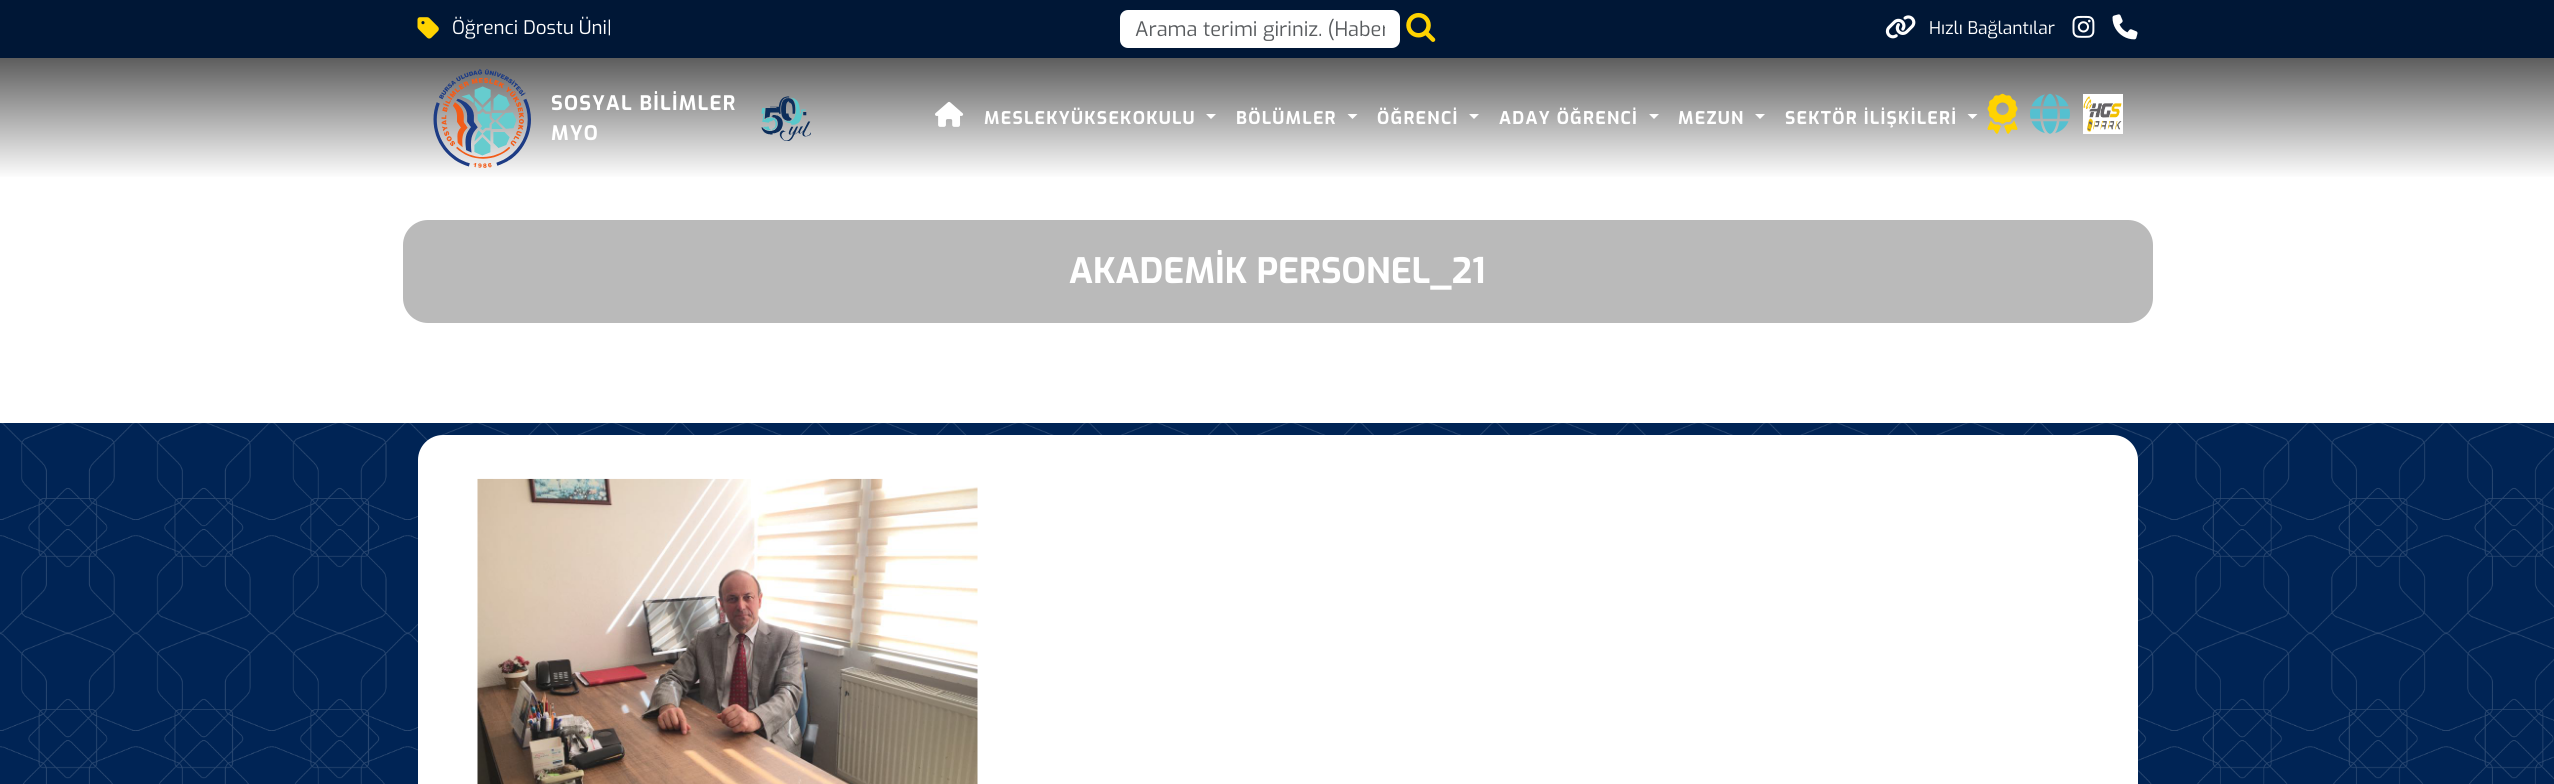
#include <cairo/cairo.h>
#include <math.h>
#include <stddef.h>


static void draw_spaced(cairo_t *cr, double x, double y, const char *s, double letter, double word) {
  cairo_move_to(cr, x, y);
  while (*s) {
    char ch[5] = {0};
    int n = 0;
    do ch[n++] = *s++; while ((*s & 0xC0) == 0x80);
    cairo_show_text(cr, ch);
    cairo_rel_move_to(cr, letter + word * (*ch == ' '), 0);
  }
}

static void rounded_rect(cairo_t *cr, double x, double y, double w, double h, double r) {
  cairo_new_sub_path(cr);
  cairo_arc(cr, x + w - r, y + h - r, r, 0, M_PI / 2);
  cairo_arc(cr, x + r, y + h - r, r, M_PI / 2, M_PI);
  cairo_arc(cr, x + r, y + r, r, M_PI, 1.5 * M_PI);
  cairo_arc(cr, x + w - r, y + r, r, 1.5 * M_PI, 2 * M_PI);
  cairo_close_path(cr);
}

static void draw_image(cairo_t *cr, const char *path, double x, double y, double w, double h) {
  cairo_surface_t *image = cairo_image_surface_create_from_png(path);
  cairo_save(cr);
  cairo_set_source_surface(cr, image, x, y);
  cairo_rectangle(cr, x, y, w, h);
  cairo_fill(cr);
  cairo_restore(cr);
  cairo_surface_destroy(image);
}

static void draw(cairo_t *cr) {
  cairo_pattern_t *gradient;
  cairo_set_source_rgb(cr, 1, 1, 1);
  cairo_paint(cr);
  cairo_set_source_rgb(cr, 0, 23 / 255.0, 54 / 255.0);
  cairo_rectangle(cr, 0, 0, 2554, 58);
  cairo_fill(cr);
  draw_image(cr, "images/1.png", 417, 17, 22, 22);
  cairo_set_source_rgb(cr, 1, 1, 1);
  rounded_rect(cr, 1120, 10, 280, 38, 8);
  cairo_fill(cr);
  draw_image(cr, "images/2.png", 1406, 12, 30, 30);
  draw_image(cr, "images/3.png", 1885, 15, 31, 24);
  draw_image(cr, "images/4.png", 2072, 15, 23, 23);
  draw_image(cr, "images/5.png", 2112, 14, 26, 26);
  gradient = cairo_pattern_create_linear(1278, 179, 1278, -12);
  cairo_pattern_add_color_stop_rgba(gradient, 0, 1, 1, 1, 1);
  cairo_pattern_add_color_stop_rgba(gradient, 1, 0, 0, 0, 1);
  cairo_set_source(cr, gradient);
  cairo_pattern_destroy(gradient);
  cairo_rectangle(cr, 0, 58, 2554, 119);
  cairo_fill(cr);
  draw_image(cr, "images/6.png", 433, 69, 98, 99);
  draw_image(cr, "images/7.png", 761, 96, 50, 45);
  draw_image(cr, "images/8.png", 935, 101, 29, 26);
  cairo_set_source_rgb(cr, 1, 1, 1);
  cairo_new_path(cr);
  cairo_move_to(cr, 1206, 114);
  cairo_line_to(cr, 1216, 114);
  cairo_line_to(cr, 1211, 119);
  cairo_close_path(cr);
  cairo_fill(cr);
  cairo_new_path(cr);
  cairo_move_to(cr, 1347.5, 114);
  cairo_line_to(cr, 1357.5, 114);
  cairo_line_to(cr, 1352.5, 119);
  cairo_close_path(cr);
  cairo_fill(cr);
  cairo_new_path(cr);
  cairo_move_to(cr, 1469, 114);
  cairo_line_to(cr, 1479, 114);
  cairo_line_to(cr, 1474, 119);
  cairo_close_path(cr);
  cairo_fill(cr);
  cairo_new_path(cr);
  cairo_move_to(cr, 1649, 114);
  cairo_line_to(cr, 1659, 114);
  cairo_line_to(cr, 1654, 119);
  cairo_close_path(cr);
  cairo_fill(cr);
  cairo_new_path(cr);
  cairo_move_to(cr, 1755, 114);
  cairo_line_to(cr, 1765, 114);
  cairo_line_to(cr, 1760, 119);
  cairo_close_path(cr);
  cairo_fill(cr);
  cairo_new_path(cr);
  cairo_move_to(cr, 1967.5, 114);
  cairo_line_to(cr, 1977.5, 114);
  cairo_line_to(cr, 1972.5, 119);
  cairo_close_path(cr);
  cairo_fill(cr);
  draw_image(cr, "images/9.png", 1987, 93, 31, 41);
  draw_image(cr, "images/10.png", 2030, 93, 40, 41);
  cairo_rectangle(cr, 2083, 94, 40, 40);
  cairo_fill(cr);
  draw_image(cr, "images/11.png", 2083, 96, 39, 36);
  cairo_set_source_rgb(cr, 186 / 255.0, 186 / 255.0, 186 / 255.0);
  rounded_rect(cr, 403, 220, 1750, 103, 25);
  cairo_fill(cr);
  cairo_set_source_rgb(cr, 0, 36 / 255.0, 85 / 255.0);
  cairo_rectangle(cr, 0, 423, 2554, 361);
  cairo_fill(cr);
  draw_image(cr, "images/12.png", 0, 423, 2554, 361);
  cairo_set_source_rgb(cr, 1, 1, 1);
  rounded_rect(cr, 418, 435, 1720, 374, 25);
  cairo_fill(cr);
  draw_image(cr, "images/13.png", 477, 478, 501, 306);
  cairo_select_font_face(cr, "Exo", CAIRO_FONT_SLANT_NORMAL, CAIRO_FONT_WEIGHT_NORMAL);
  cairo_set_font_size(cr, 18.75);
  cairo_move_to(cr, 452, 34);
  cairo_show_text(cr, "Öğrenci Dostu Üni|");
  cairo_save(cr);
  cairo_rectangle(cr, 1135, 16, 250, 27);
  cairo_clip(cr);
  cairo_set_font_size(cr, 20);
  cairo_set_source_rgb(cr, 89 / 255.0, 92 / 255.0, 95 / 255.0);
  cairo_move_to(cr, 1135, 36);
  cairo_show_text(cr, "Arama terimi giriniz. (Haber");
  cairo_restore(cr);
  cairo_set_font_size(cr, 17.5);
  cairo_move_to(cr, 1929, 34);
  cairo_show_text(cr, "Hızlı Bağlantılar");
  cairo_select_font_face(cr, "Exo", CAIRO_FONT_SLANT_NORMAL, CAIRO_FONT_WEIGHT_BOLD);
  cairo_set_font_size(cr, 20);
  draw_spaced(cr, 551, 110, "SOSYAL BİLİMLER", 1.25, 0);
  draw_spaced(cr, 551, 140, "MYO", 1.25, 0);
  cairo_set_font_size(cr, 17.5);
  draw_spaced(cr, 984, 124, "MESLEKYÜKSEKOKULU", 1.25, 0);
  draw_spaced(cr, 1236, 124, "BÖLÜMLER", 1.25, 0);
  draw_spaced(cr, 1377, 124, "ÖĞRENCİ", 1.25, 0);
  draw_spaced(cr, 1499, 124, "ADAY ÖĞRENCİ", 1.25, 0);
  draw_spaced(cr, 1678, 124, "MEZUN", 1.25, 0);
  draw_spaced(cr, 1785, 124, "SEKTÖR İLİŞKİLERİ", 1.25, 0);
  cairo_set_font_size(cr, 35);
  cairo_move_to(cr, 1069, 283);
  cairo_show_text(cr, "AKADEMİK PERSONEL_21");
}

int main(void) {
  cairo_surface_t *surface = cairo_image_surface_create(CAIRO_FORMAT_RGB24, 2554, 784);
  cairo_t *cr = cairo_create(surface);
  cairo_font_options_t *options = cairo_font_options_create();
  cairo_font_options_set_hint_metrics(options, CAIRO_HINT_METRICS_OFF);
  cairo_font_options_set_hint_style(options, CAIRO_HINT_STYLE_NONE);
  cairo_set_font_options(cr, options);
  cairo_set_miter_limit(cr, 4);
  draw(cr);
  cairo_surface_write_to_png(surface, "out.png");
  cairo_font_options_destroy(options);
  cairo_destroy(cr);
  cairo_surface_destroy(surface);
  return 0;
}
